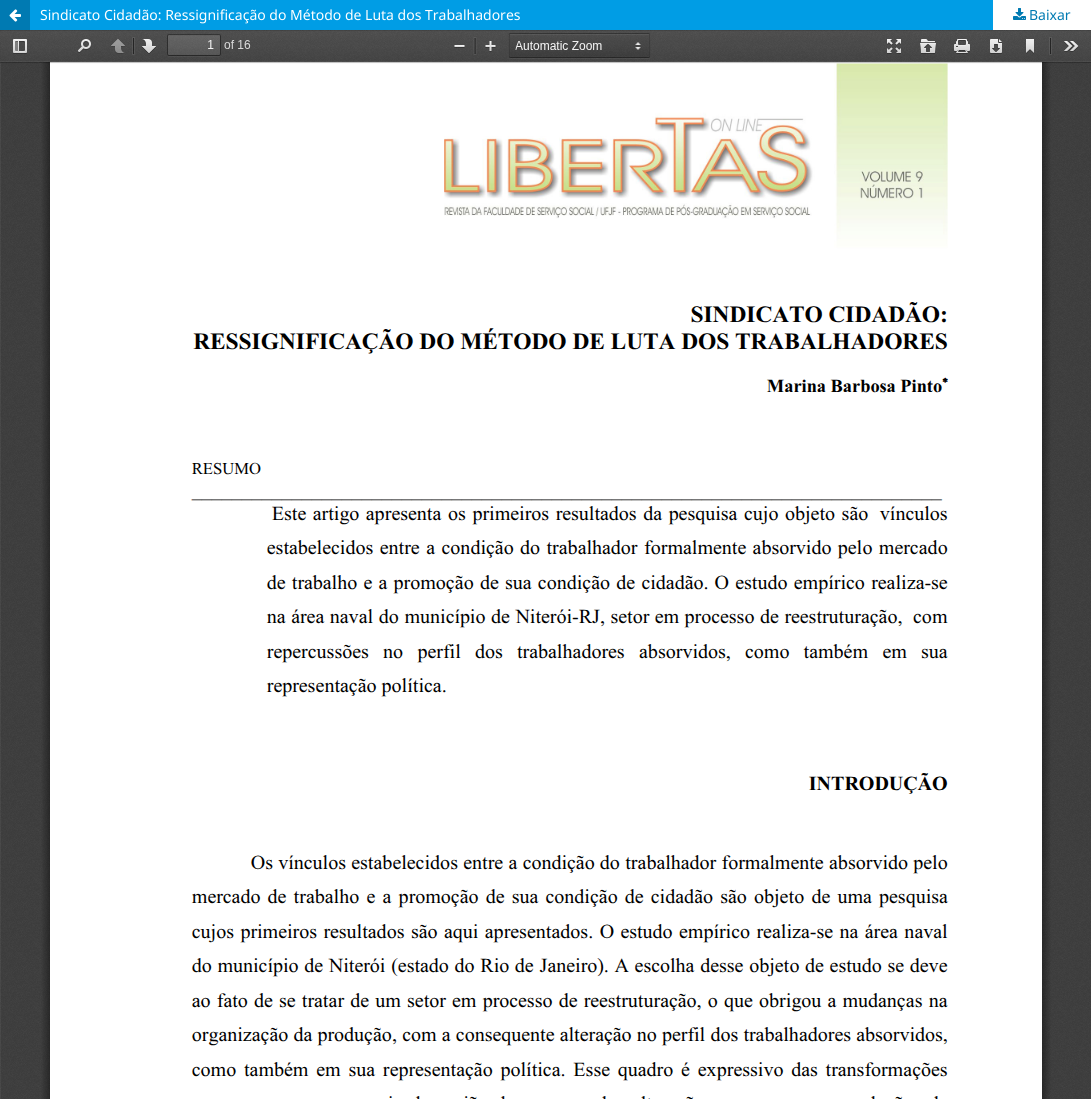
#include <cairo/cairo.h>
#include <math.h>
#include <stddef.h>


static void draw_image(cairo_t *cr, const char *path, double x, double y, double w, double h) {
  cairo_surface_t *image = cairo_image_surface_create_from_png(path);
  cairo_save(cr);
  cairo_set_source_surface(cr, image, x, y);
  cairo_rectangle(cr, x, y, w, h);
  cairo_fill(cr);
  cairo_restore(cr);
  cairo_surface_destroy(image);
}

static void draw(cairo_t *cr) {
  cairo_set_source_rgb(cr, 1, 1, 1);
  cairo_paint(cr);
  cairo_set_source_rgb(cr, 0, 157 / 255.0, 229 / 255.0);
  cairo_rectangle(cr, 30, 0, 963, 30);
  cairo_fill(cr);
  cairo_set_source_rgb(cr, 0, 122 / 255.0, 178 / 255.0);
  cairo_rectangle(cr, 0, 0, 30, 30);
  cairo_fill(cr);
  draw_image(cr, "images/1.png", 9, 9, 12, 13);
  draw_image(cr, "images/2.png", 1013, 8, 13, 12);
  draw_image(cr, "images/3.png", 0, 30, 1091, 1069);
  cairo_select_font_face(cr, "Noto Sans", CAIRO_FONT_SLANT_NORMAL, CAIRO_FONT_WEIGHT_NORMAL);
  cairo_set_font_size(cr, 14);
  cairo_set_source_rgb(cr, 1, 1, 1);
  cairo_move_to(cr, 40, 20);
  cairo_show_text(cr, "Sindicato Cidadão: Ressignificação do Método de Luta dos Trabalhadores");
  cairo_set_source_rgb(cr, 0, 122 / 255.0, 178 / 255.0);
  cairo_move_to(cr, 1029, 20);
  cairo_show_text(cr, "Baixar");
}

int main(void) {
  cairo_surface_t *surface = cairo_image_surface_create(CAIRO_FORMAT_RGB24, 1091, 1099);
  cairo_t *cr = cairo_create(surface);
  cairo_font_options_t *options = cairo_font_options_create();
  cairo_font_options_set_hint_metrics(options, CAIRO_HINT_METRICS_OFF);
  cairo_font_options_set_hint_style(options, CAIRO_HINT_STYLE_NONE);
  cairo_set_font_options(cr, options);
  cairo_set_miter_limit(cr, 4);
  draw(cr);
  cairo_surface_write_to_png(surface, "out.png");
  cairo_font_options_destroy(options);
  cairo_destroy(cr);
  cairo_surface_destroy(surface);
  return 0;
}
